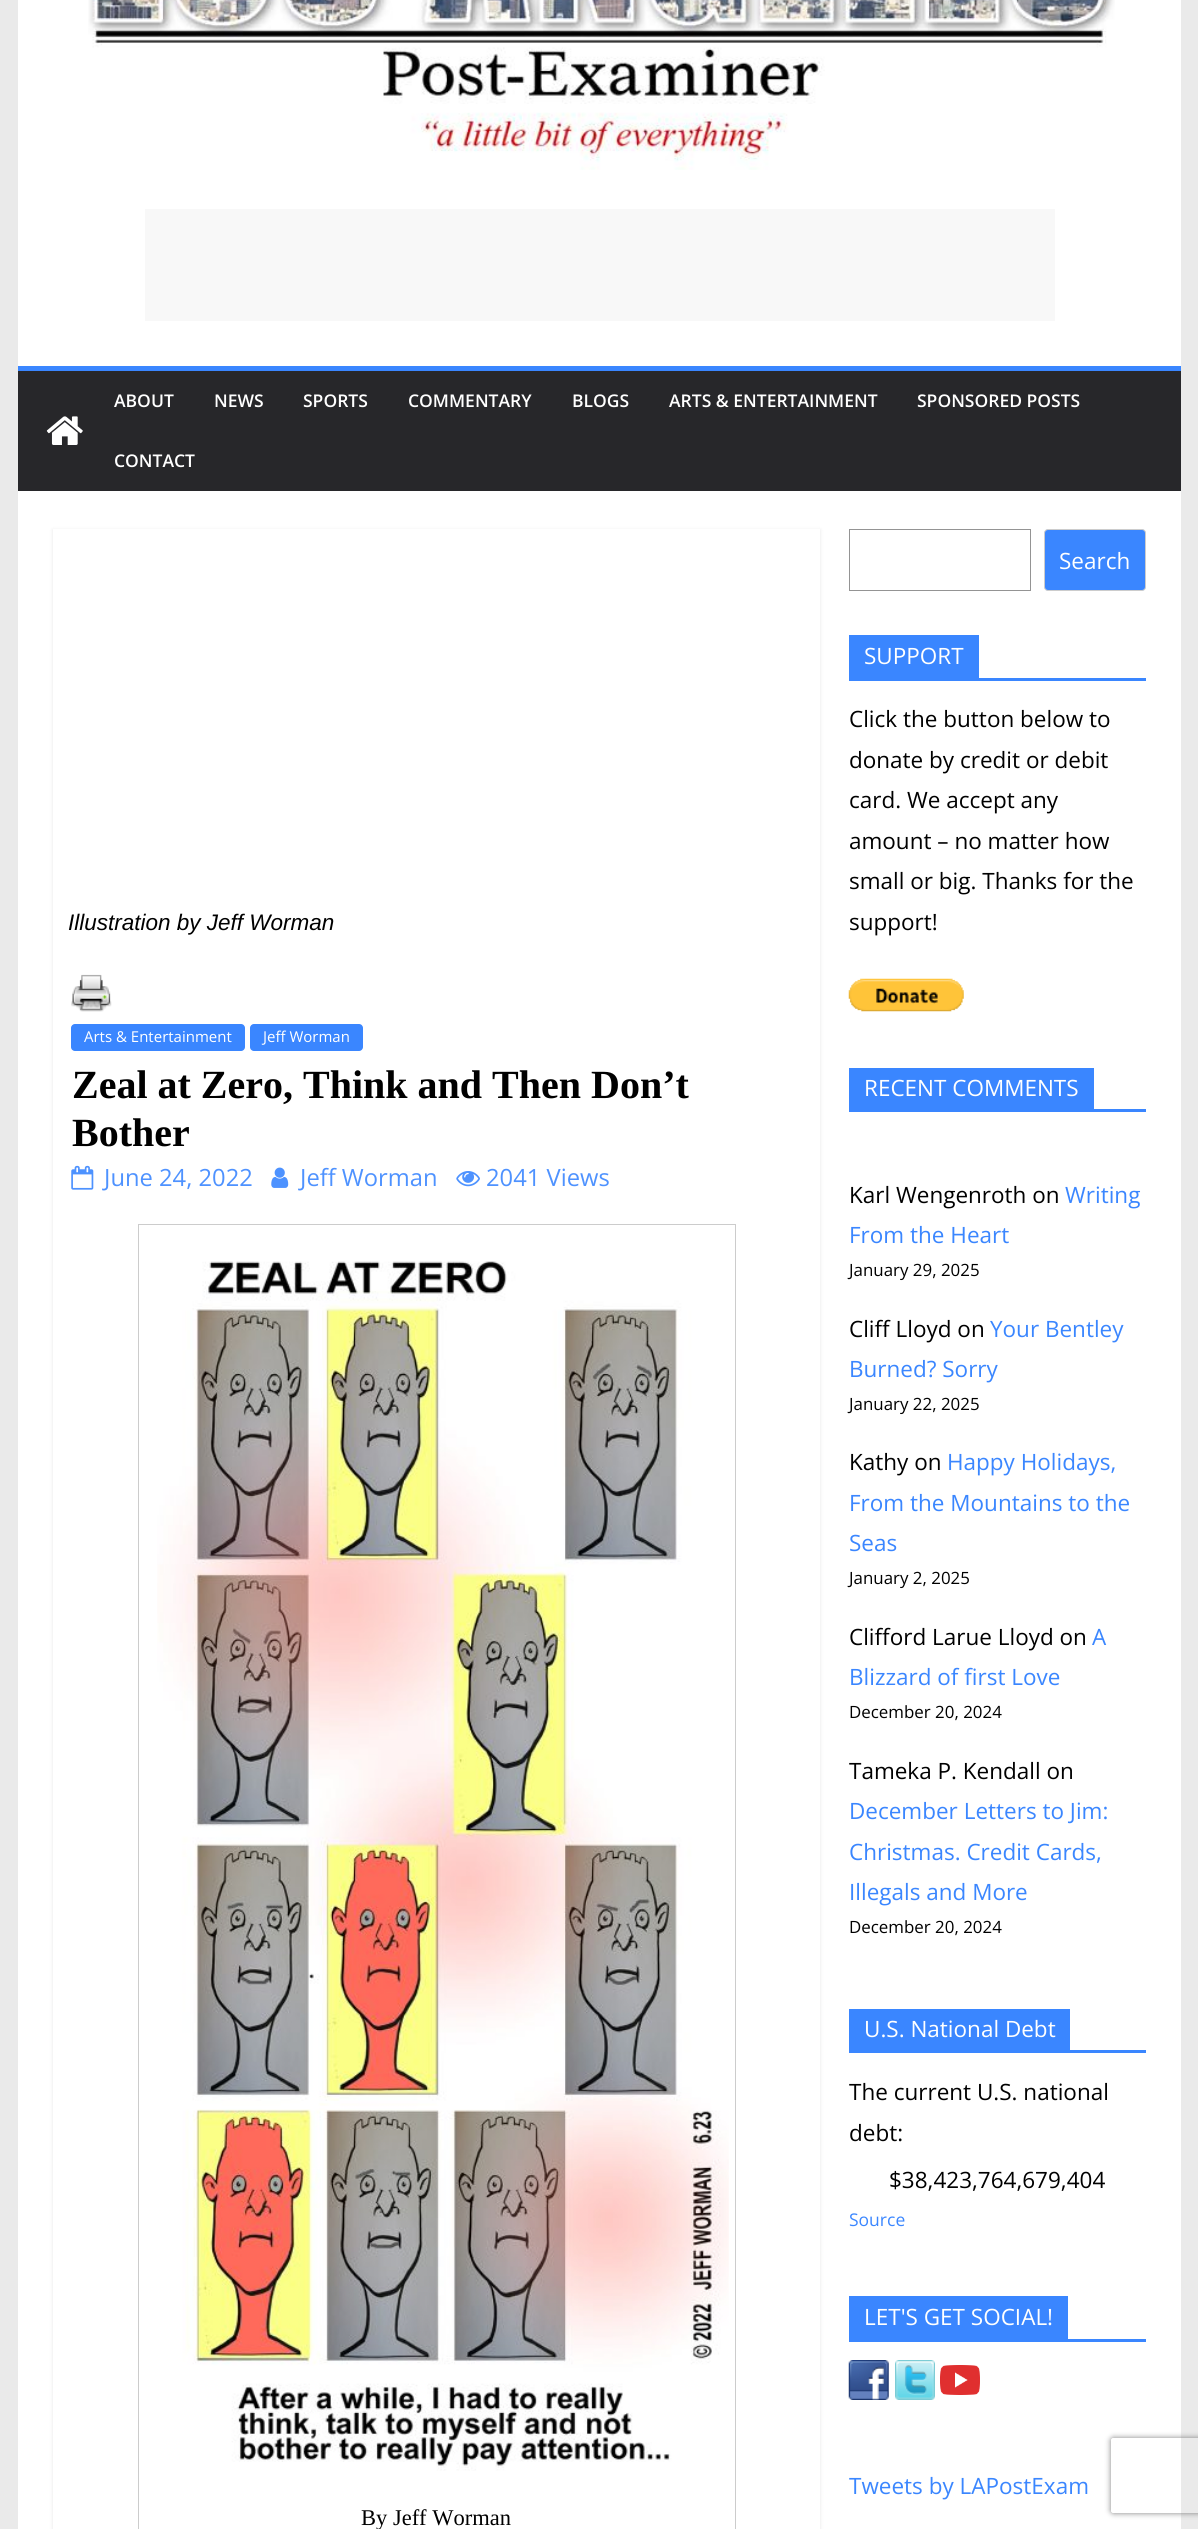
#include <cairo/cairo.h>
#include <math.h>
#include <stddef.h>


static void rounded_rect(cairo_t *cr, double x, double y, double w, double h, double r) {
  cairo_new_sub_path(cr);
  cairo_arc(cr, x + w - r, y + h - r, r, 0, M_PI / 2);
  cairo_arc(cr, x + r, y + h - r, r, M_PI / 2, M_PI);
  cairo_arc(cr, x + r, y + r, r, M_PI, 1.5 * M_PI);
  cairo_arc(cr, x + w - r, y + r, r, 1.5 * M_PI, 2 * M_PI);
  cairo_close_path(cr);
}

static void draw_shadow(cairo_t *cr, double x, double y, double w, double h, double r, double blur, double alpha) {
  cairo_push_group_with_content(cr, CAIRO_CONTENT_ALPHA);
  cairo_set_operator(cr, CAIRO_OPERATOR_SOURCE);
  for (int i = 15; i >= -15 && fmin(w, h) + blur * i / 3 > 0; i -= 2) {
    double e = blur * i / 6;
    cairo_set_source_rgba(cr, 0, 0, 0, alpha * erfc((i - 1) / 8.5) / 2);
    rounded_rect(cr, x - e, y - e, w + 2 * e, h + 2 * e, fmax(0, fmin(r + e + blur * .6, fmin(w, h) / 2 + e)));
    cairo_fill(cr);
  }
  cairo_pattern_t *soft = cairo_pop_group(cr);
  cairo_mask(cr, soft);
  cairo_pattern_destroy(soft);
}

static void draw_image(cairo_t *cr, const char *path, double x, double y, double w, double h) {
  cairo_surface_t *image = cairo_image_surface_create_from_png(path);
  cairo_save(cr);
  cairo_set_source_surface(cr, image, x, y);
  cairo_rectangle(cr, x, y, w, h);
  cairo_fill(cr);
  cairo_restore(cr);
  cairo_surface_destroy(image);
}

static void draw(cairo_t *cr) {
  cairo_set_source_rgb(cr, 234 / 255.0, 234 / 255.0, 234 / 255.0);
  cairo_paint(cr);
  cairo_set_source_rgb(cr, 1, 1, 1);
  cairo_rectangle(cr, 18, 0, 1163, 366);
  cairo_fill(cr);
  draw_image(cr, "images/1.png", 88, 0, 1027, 170);
  cairo_set_source_rgb(cr, 248 / 255.0, 248 / 255.0, 248 / 255.0);
  cairo_rectangle(cr, 145, 209, 910, 112);
  cairo_fill(cr);
  cairo_set_source_rgb(cr, 39 / 255.0, 39 / 255.0, 42 / 255.0);
  cairo_rectangle(cr, 18, 371, 1163, 120);
  cairo_fill(cr);
  cairo_set_source_rgb(cr, 58 / 255.0, 134 / 255.0, 1);
  cairo_rectangle(cr, 18, 366, 1163, 5);
  cairo_fill(cr);
  draw_image(cr, "images/2.png", 46, 416, 37, 29);
  cairo_set_source_rgb(cr, 1, 1, 1);
  cairo_rectangle(cr, 18, 491, 1163, 2038);
  cairo_fill(cr);
  cairo_save(cr);
  cairo_set_fill_rule(cr, CAIRO_FILL_RULE_EVEN_ODD);
  cairo_new_path(cr);
  cairo_move_to(cr, 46, 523);
  cairo_line_to(cr, 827, 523);
  cairo_line_to(cr, 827, 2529);
  cairo_line_to(cr, 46, 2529);
  cairo_close_path(cr);
  cairo_move_to(cr, 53, 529);
  cairo_line_to(cr, 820, 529);
  cairo_line_to(cr, 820, 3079);
  cairo_line_to(cr, 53, 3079);
  cairo_close_path(cr);
  cairo_clip(cr);
  cairo_set_source_rgb(cr, 0, 0, 0);
  draw_shadow(cr, 53, 530, 767, 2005, 0, 2, 0.1);
  cairo_restore(cr);
  draw_image(cr, "images/3.png", 71, 974, 41, 38);
  cairo_set_source_rgb(cr, 58 / 255.0, 134 / 255.0, 1);
  rounded_rect(cr, 71, 1024, 174, 27, 4);
  cairo_fill(cr);
  rounded_rect(cr, 250, 1024, 113, 27, 4);
  cairo_fill(cr);
  draw_image(cr, "images/4.png", 71, 1165, 23, 25);
  draw_image(cr, "images/5.png", 271, 1167, 18, 21);
  draw_image(cr, "images/6.png", 456, 1171, 24, 16);
  cairo_rectangle(cr, 138.5, 1224.5, 597, 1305);
  cairo_set_source_rgb(cr, 204 / 255.0, 204 / 255.0, 204 / 255.0);
  cairo_set_line_width(cr, 1);
  cairo_stroke(cr);
  draw_image(cr, "images/7.png", 157, 1261, 572, 1210);
  cairo_rectangle(cr, 849.5, 529.5, 181, 61);
  cairo_set_source_rgb(cr, 148 / 255.0, 148 / 255.0, 148 / 255.0);
  cairo_stroke(cr);
  cairo_set_source_rgb(cr, 58 / 255.0, 134 / 255.0, 1);
  rounded_rect(cr, 1044.5, 529.5, 101, 61, 3.5);
  cairo_fill_preserve(cr);
  cairo_set_source_rgb(cr, 204 / 255.0, 204 / 255.0, 204 / 255.0);
  cairo_stroke(cr);
  cairo_set_source_rgb(cr, 58 / 255.0, 134 / 255.0, 1);
  cairo_rectangle(cr, 849, 678, 297, 3);
  cairo_fill(cr);
  cairo_rectangle(cr, 849, 635, 130, 43);
  cairo_fill(cr);
  draw_image(cr, "images/8.png", 848, 978, 116, 34);
  cairo_rectangle(cr, 849, 1109, 297, 3);
  cairo_fill(cr);
  cairo_rectangle(cr, 849, 1068, 245, 41);
  cairo_fill(cr);
  cairo_rectangle(cr, 849, 2050, 297, 3);
  cairo_fill(cr);
  cairo_rectangle(cr, 849, 2009, 221, 41);
  cairo_fill(cr);
  cairo_rectangle(cr, 849, 2339, 297, 3);
  cairo_fill(cr);
  cairo_rectangle(cr, 849, 2296, 219, 43);
  cairo_fill(cr);
  draw_image(cr, "images/9.png", 848, 2360, 41, 40);
  draw_image(cr, "images/10.png", 895, 2360, 40, 40);
  draw_image(cr, "images/11.png", 940, 2365, 40, 30);
  cairo_save(cr);
  cairo_set_fill_rule(cr, CAIRO_FILL_RULE_EVEN_ODD);
  cairo_new_path(cr);
  cairo_move_to(cr, 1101, 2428);
  cairo_line_to(cr, 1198, 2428);
  cairo_line_to(cr, 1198, 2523);
  cairo_line_to(cr, 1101, 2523);
  cairo_close_path(cr);
  cairo_move_to(cr, 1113.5, 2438);
  cairo_line_to(cr, 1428.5, 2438);
  cairo_curve_to(cr, 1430, 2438, 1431, 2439, 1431, 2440.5);
  cairo_line_to(cr, 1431, 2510.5);
  cairo_curve_to(cr, 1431, 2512, 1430, 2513, 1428.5, 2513);
  cairo_line_to(cr, 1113.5, 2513);
  cairo_curve_to(cr, 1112, 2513, 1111, 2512, 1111, 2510.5);
  cairo_line_to(cr, 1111, 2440.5);
  cairo_curve_to(cr, 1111, 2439, 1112, 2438, 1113.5, 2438);
  cairo_close_path(cr);
  cairo_clip(cr);
  cairo_set_source_rgb(cr, 128 / 255.0, 128 / 255.0, 128 / 255.0);
  draw_shadow(cr, 1111, 2438, 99, 75, 2.5, 3, 1);
  cairo_restore(cr);
  cairo_select_font_face(cr, "Open Sans SemiBold", CAIRO_FONT_SLANT_NORMAL, CAIRO_FONT_WEIGHT_NORMAL);
  cairo_set_font_size(cr, 17.5);
  cairo_set_source_rgb(cr, 1, 1, 1);
  cairo_move_to(cr, 114, 407);
  cairo_show_text(cr, "ABOUT");
  cairo_move_to(cr, 214, 407);
  cairo_show_text(cr, "NEWS");
  cairo_move_to(cr, 303, 407);
  cairo_show_text(cr, "SPORTS");
  cairo_move_to(cr, 408, 407);
  cairo_show_text(cr, "COMMENTARY");
  cairo_move_to(cr, 572, 407);
  cairo_show_text(cr, "BLOGS");
  cairo_move_to(cr, 669, 407);
  cairo_show_text(cr, "ARTS & ENTERTAINMENT");
  cairo_move_to(cr, 917, 407);
  cairo_show_text(cr, "SPONSORED POSTS");
  cairo_move_to(cr, 114, 467);
  cairo_show_text(cr, "CONTACT");
  cairo_select_font_face(cr, "Liberation Sans", CAIRO_FONT_SLANT_ITALIC, CAIRO_FONT_WEIGHT_NORMAL);
  cairo_set_font_size(cr, 22.5);
  cairo_set_source_rgb(cr, 0, 0, 0);
  cairo_move_to(cr, 68, 930);
  cairo_show_text(cr, "Illustration by Jeff Worman");
  cairo_select_font_face(cr, "Open Sans", CAIRO_FONT_SLANT_NORMAL, CAIRO_FONT_WEIGHT_NORMAL);
  cairo_set_font_size(cr, 15);
  cairo_set_source_rgb(cr, 1, 1, 1);
  cairo_move_to(cr, 84, 1042);
  cairo_show_text(cr, "Arts & Entertainment");
  cairo_move_to(cr, 263, 1042);
  cairo_show_text(cr, "Jeff Worman");
  cairo_select_font_face(cr, "Liberation Serif", CAIRO_FONT_SLANT_NORMAL, CAIRO_FONT_WEIGHT_BOLD);
  cairo_set_font_size(cr, 40);
  cairo_set_source_rgb(cr, 0, 0, 0);
  cairo_move_to(cr, 72, 1098);
  cairo_show_text(cr, "Zeal at Zero, Think and Then Don’t");
  cairo_move_to(cr, 72, 1146);
  cairo_show_text(cr, "Bother");
  cairo_select_font_face(cr, "Open Sans", CAIRO_FONT_SLANT_NORMAL, CAIRO_FONT_WEIGHT_NORMAL);
  cairo_set_font_size(cr, 23.75);
  cairo_set_source_rgb(cr, 78 / 255.0, 146 / 255.0, 1);
  cairo_move_to(cr, 104, 1186);
  cairo_show_text(cr, "June 24, 2022");
  cairo_move_to(cr, 300, 1186);
  cairo_show_text(cr, "Jeff Worman");
  cairo_move_to(cr, 486, 1186);
  cairo_show_text(cr, "2041 Views");
  cairo_select_font_face(cr, "Liberation Serif", CAIRO_FONT_SLANT_NORMAL, CAIRO_FONT_WEIGHT_NORMAL);
  cairo_set_font_size(cr, 22.5);
  cairo_set_source_rgb(cr, 0, 0, 0);
  cairo_move_to(cr, 361, 2525);
  cairo_show_text(cr, "By Jeff Worman");
  cairo_select_font_face(cr, "Open Sans", CAIRO_FONT_SLANT_NORMAL, CAIRO_FONT_WEIGHT_NORMAL);
  cairo_set_source_rgb(cr, 1, 1, 1);
  cairo_move_to(cr, 1059, 569);
  cairo_show_text(cr, "Search");
  cairo_move_to(cr, 864, 664);
  cairo_show_text(cr, "SUPPORT");
  cairo_set_source_rgb(cr, 0, 0, 0);
  cairo_move_to(cr, 849, 727);
  cairo_show_text(cr, "Click the button below to");
  cairo_move_to(cr, 849, 768);
  cairo_show_text(cr, "donate by credit or debit");
  cairo_move_to(cr, 849, 808);
  cairo_show_text(cr, "card. We accept any");
  cairo_move_to(cr, 849, 849);
  cairo_show_text(cr, "amount – no matter how");
  cairo_move_to(cr, 849, 889);
  cairo_show_text(cr, "small or big. Thanks for the");
  cairo_move_to(cr, 849, 930);
  cairo_show_text(cr, "support!");
  cairo_set_source_rgb(cr, 1, 1, 1);
  cairo_move_to(cr, 864, 1096);
  cairo_show_text(cr, "RECENT COMMENTS");
  cairo_set_source_rgb(cr, 0, 0, 0);
  cairo_move_to(cr, 849, 1203);
  cairo_show_text(cr, "Karl Wengenroth on");
  cairo_set_source_rgb(cr, 58 / 255.0, 134 / 255.0, 1);
  cairo_move_to(cr, 1065, 1203);
  cairo_show_text(cr, "Writing");
  cairo_move_to(cr, 849, 1243);
  cairo_show_text(cr, "From the Heart");
  cairo_set_font_size(cr, 16.9);
  cairo_set_source_rgb(cr, 0, 0, 0);
  cairo_move_to(cr, 849, 1276);
  cairo_show_text(cr, "January 29, 2025");
  cairo_set_font_size(cr, 22.5);
  cairo_move_to(cr, 849, 1337);
  cairo_show_text(cr, "Cliff Lloyd on");
  cairo_set_source_rgb(cr, 58 / 255.0, 134 / 255.0, 1);
  cairo_move_to(cr, 990, 1337);
  cairo_show_text(cr, "Your Bentley");
  cairo_move_to(cr, 849, 1377);
  cairo_show_text(cr, "Burned? Sorry");
  cairo_set_font_size(cr, 16.9);
  cairo_set_source_rgb(cr, 0, 0, 0);
  cairo_move_to(cr, 849, 1410);
  cairo_show_text(cr, "January 22, 2025");
  cairo_set_font_size(cr, 22.5);
  cairo_move_to(cr, 849, 1470);
  cairo_show_text(cr, "Kathy on");
  cairo_set_source_rgb(cr, 58 / 255.0, 134 / 255.0, 1);
  cairo_move_to(cr, 947, 1470);
  cairo_show_text(cr, "Happy Holidays,");
  cairo_move_to(cr, 849, 1511);
  cairo_show_text(cr, "From the Mountains to the");
  cairo_move_to(cr, 849, 1551);
  cairo_show_text(cr, "Seas");
  cairo_set_font_size(cr, 16.9);
  cairo_set_source_rgb(cr, 0, 0, 0);
  cairo_move_to(cr, 849, 1584);
  cairo_show_text(cr, "January 2, 2025");
  cairo_set_font_size(cr, 22.5);
  cairo_move_to(cr, 849, 1645);
  cairo_show_text(cr, "Clifford Larue Lloyd on");
  cairo_set_source_rgb(cr, 58 / 255.0, 134 / 255.0, 1);
  cairo_move_to(cr, 1092, 1645);
  cairo_show_text(cr, "A");
  cairo_move_to(cr, 849, 1685);
  cairo_show_text(cr, "Blizzard of first Love");
  cairo_set_font_size(cr, 16.9);
  cairo_set_source_rgb(cr, 0, 0, 0);
  cairo_move_to(cr, 849, 1718);
  cairo_show_text(cr, "December 20, 2024");
  cairo_set_font_size(cr, 22.5);
  cairo_move_to(cr, 849, 1779);
  cairo_show_text(cr, "Tameka P. Kendall on");
  cairo_set_source_rgb(cr, 58 / 255.0, 134 / 255.0, 1);
  cairo_move_to(cr, 849, 1819);
  cairo_show_text(cr, "December Letters to Jim:");
  cairo_move_to(cr, 849, 1860);
  cairo_show_text(cr, "Christmas. Credit Cards,");
  cairo_move_to(cr, 849, 1900);
  cairo_show_text(cr, "Illegals and More");
  cairo_set_font_size(cr, 16.9);
  cairo_set_source_rgb(cr, 0, 0, 0);
  cairo_move_to(cr, 849, 1933);
  cairo_show_text(cr, "December 20, 2024");
  cairo_set_font_size(cr, 22.5);
  cairo_set_source_rgb(cr, 1, 1, 1);
  cairo_move_to(cr, 864, 2037);
  cairo_show_text(cr, "U.S. National Debt");
  cairo_set_source_rgb(cr, 0, 0, 0);
  cairo_move_to(cr, 849, 2100);
  cairo_show_text(cr, "The current U.S. national");
  cairo_move_to(cr, 849, 2141);
  cairo_show_text(cr, "debt:");
  cairo_move_to(cr, 889, 2188);
  cairo_show_text(cr, "$38,423,764,679,404");
  cairo_set_font_size(cr, 17.5);
  cairo_set_source_rgb(cr, 58 / 255.0, 134 / 255.0, 1);
  cairo_move_to(cr, 849, 2226);
  cairo_show_text(cr, "Source");
  cairo_set_font_size(cr, 22.5);
  cairo_set_source_rgb(cr, 1, 1, 1);
  cairo_move_to(cr, 864, 2325);
  cairo_show_text(cr, "LET'S GET SOCIAL!");
  cairo_set_source_rgb(cr, 58 / 255.0, 134 / 255.0, 1);
  cairo_move_to(cr, 849, 2494);
  cairo_show_text(cr, "Tweets by LAPostExam");
}

int main(void) {
  cairo_surface_t *surface = cairo_image_surface_create(CAIRO_FORMAT_RGB24, 1198, 2529);
  cairo_t *cr = cairo_create(surface);
  cairo_font_options_t *options = cairo_font_options_create();
  cairo_font_options_set_hint_metrics(options, CAIRO_HINT_METRICS_OFF);
  cairo_font_options_set_hint_style(options, CAIRO_HINT_STYLE_NONE);
  cairo_set_font_options(cr, options);
  cairo_set_miter_limit(cr, 4);
  draw(cr);
  cairo_surface_write_to_png(surface, "out.png");
  cairo_font_options_destroy(options);
  cairo_destroy(cr);
  cairo_surface_destroy(surface);
  return 0;
}
